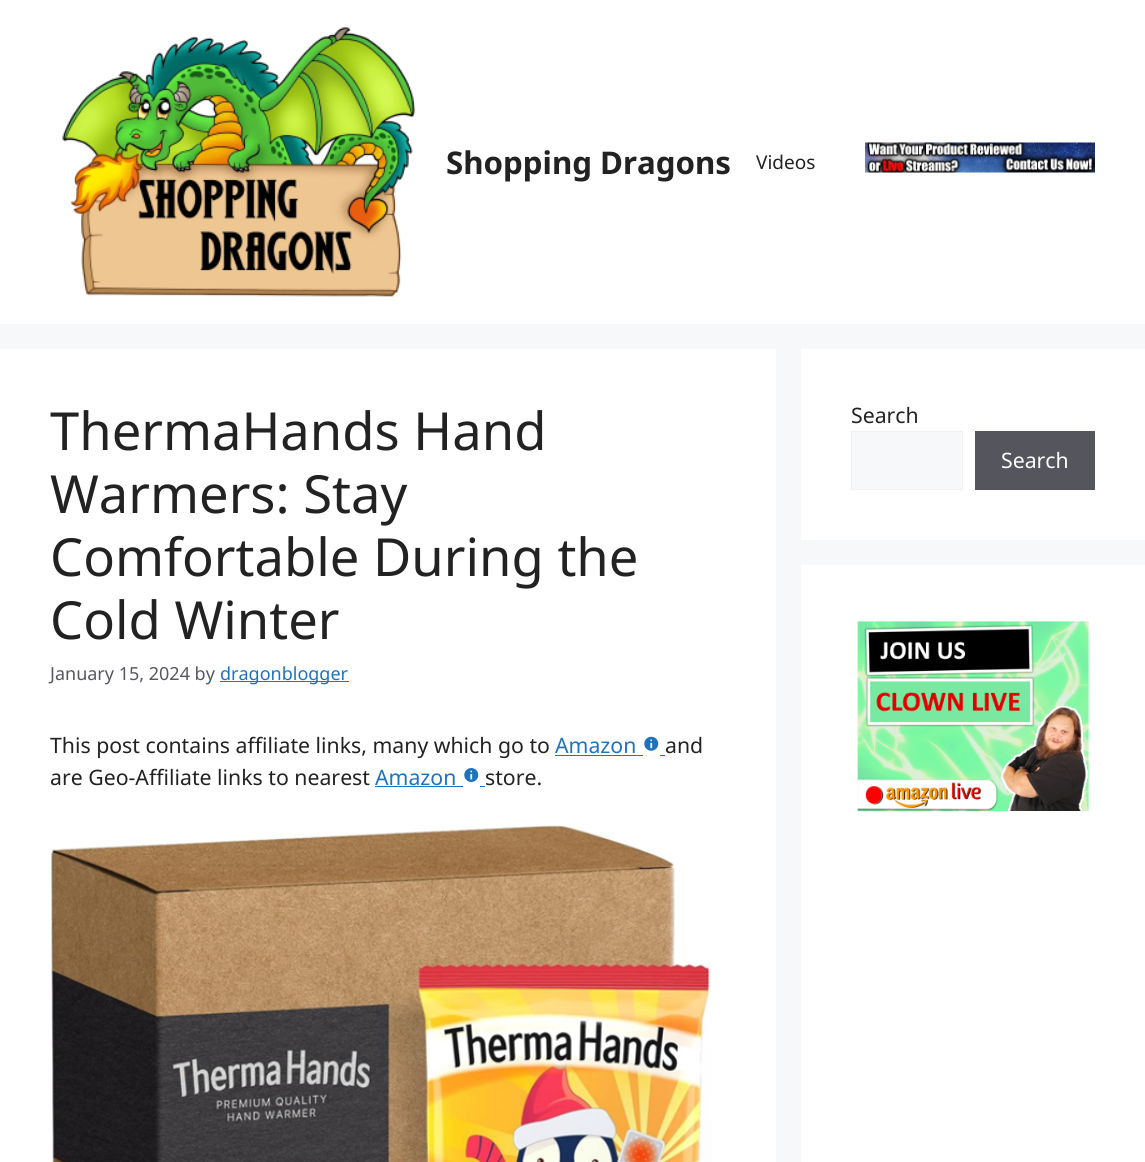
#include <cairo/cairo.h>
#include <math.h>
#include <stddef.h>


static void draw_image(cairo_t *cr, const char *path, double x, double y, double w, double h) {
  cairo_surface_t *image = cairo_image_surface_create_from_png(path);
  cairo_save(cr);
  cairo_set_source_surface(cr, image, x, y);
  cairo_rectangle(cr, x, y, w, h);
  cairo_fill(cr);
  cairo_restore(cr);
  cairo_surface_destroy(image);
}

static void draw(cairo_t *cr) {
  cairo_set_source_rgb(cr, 247 / 255.0, 248 / 255.0, 249 / 255.0);
  cairo_paint(cr);
  cairo_set_source_rgb(cr, 1, 1, 1);
  cairo_rectangle(cr, 0, 0, 1145, 324);
  cairo_fill(cr);
  draw_image(cr, "images/1.png", 62, 26, 354, 271);
  draw_image(cr, "images/2.png", 865, 142, 230, 31);
  cairo_rectangle(cr, 0, 349, 776, 813);
  cairo_fill(cr);
  cairo_set_source_rgb(cr, 30 / 255.0, 115 / 255.0, 190 / 255.0);
  cairo_rectangle(cr, 220, 681, 129, 1);
  cairo_fill(cr);
  cairo_rectangle(cr, 555, 755, 88, 1);
  cairo_fill(cr);
  draw_image(cr, "images/3.png", 644, 736, 15, 15);
  cairo_rectangle(cr, 660, 755, 5, 1);
  cairo_fill(cr);
  cairo_rectangle(cr, 375, 786, 88, 1);
  cairo_fill(cr);
  draw_image(cr, "images/4.png", 464, 768, 15, 14);
  cairo_rectangle(cr, 480, 786, 5, 1);
  cairo_fill(cr);
  draw_image(cr, "images/5.png", 50, 825, 662, 337);
  cairo_set_source_rgb(cr, 1, 1, 1);
  cairo_rectangle(cr, 801, 349, 344, 191);
  cairo_fill(cr);
  cairo_set_source_rgb(cr, 247 / 255.0, 248 / 255.0, 249 / 255.0);
  cairo_rectangle(cr, 851.5, 431.5, 111, 58);
  cairo_fill_preserve(cr);
  cairo_set_source_rgb(cr, 240 / 255.0, 240 / 255.0, 240 / 255.0);
  cairo_set_line_width(cr, 1);
  cairo_stroke(cr);
  cairo_set_source_rgb(cr, 85 / 255.0, 85 / 255.0, 94 / 255.0);
  cairo_rectangle(cr, 975, 431, 120, 59);
  cairo_fill(cr);
  cairo_set_source_rgb(cr, 1, 1, 1);
  cairo_rectangle(cr, 801, 565, 344, 597);
  cairo_fill(cr);
  draw_image(cr, "images/6.png", 857, 621, 233, 191);
  cairo_select_font_face(cr, "Noto Sans", CAIRO_FONT_SLANT_NORMAL, CAIRO_FONT_WEIGHT_BOLD);
  cairo_set_font_size(cr, 31.25);
  cairo_set_source_rgb(cr, 34 / 255.0, 34 / 255.0, 34 / 255.0);
  cairo_move_to(cr, 446, 174);
  cairo_show_text(cr, "Shopping Dragons");
  cairo_select_font_face(cr, "Noto Sans", CAIRO_FONT_SLANT_NORMAL, CAIRO_FONT_WEIGHT_NORMAL);
  cairo_set_font_size(cr, 19);
  cairo_move_to(cr, 756, 169);
  cairo_show_text(cr, "Videos");
  cairo_set_font_size(cr, 52.5);
  cairo_move_to(cr, 50, 450);
  cairo_show_text(cr, "ThermaHands Hand");
  cairo_move_to(cr, 50, 513);
  cairo_show_text(cr, "Warmers: Stay");
  cairo_move_to(cr, 50, 576);
  cairo_show_text(cr, "Comfortable During the");
  cairo_move_to(cr, 50, 639);
  cairo_show_text(cr, "Cold Winter");
  cairo_set_font_size(cr, 18);
  cairo_set_source_rgb(cr, 87 / 255.0, 87 / 255.0, 96 / 255.0);
  cairo_move_to(cr, 50, 680);
  cairo_show_text(cr, "January 15, 2024 by");
  cairo_set_source_rgb(cr, 30 / 255.0, 115 / 255.0, 190 / 255.0);
  cairo_move_to(cr, 220, 680);
  cairo_show_text(cr, "dragonblogger");
  cairo_set_font_size(cr, 21.25);
  cairo_set_source_rgb(cr, 34 / 255.0, 34 / 255.0, 34 / 255.0);
  cairo_move_to(cr, 50, 753);
  cairo_show_text(cr, "This post contains affiliate links, many which go to");
  cairo_set_source_rgb(cr, 30 / 255.0, 115 / 255.0, 190 / 255.0);
  cairo_move_to(cr, 555, 753);
  cairo_show_text(cr, "Amazon");
  cairo_set_source_rgb(cr, 34 / 255.0, 34 / 255.0, 34 / 255.0);
  cairo_move_to(cr, 665, 753);
  cairo_show_text(cr, "and");
  cairo_move_to(cr, 50, 785);
  cairo_show_text(cr, "are Geo-Affiliate links to nearest");
  cairo_set_source_rgb(cr, 30 / 255.0, 115 / 255.0, 190 / 255.0);
  cairo_move_to(cr, 375, 785);
  cairo_show_text(cr, "Amazon");
  cairo_set_source_rgb(cr, 34 / 255.0, 34 / 255.0, 34 / 255.0);
  cairo_move_to(cr, 485, 785);
  cairo_show_text(cr, "store.");
  cairo_move_to(cr, 851, 423);
  cairo_show_text(cr, "Search");
  cairo_set_source_rgb(cr, 1, 1, 1);
  cairo_move_to(cr, 1001, 468);
  cairo_show_text(cr, "Search");
}

int main(void) {
  cairo_surface_t *surface = cairo_image_surface_create(CAIRO_FORMAT_RGB24, 1145, 1162);
  cairo_t *cr = cairo_create(surface);
  cairo_font_options_t *options = cairo_font_options_create();
  cairo_font_options_set_hint_metrics(options, CAIRO_HINT_METRICS_OFF);
  cairo_font_options_set_hint_style(options, CAIRO_HINT_STYLE_NONE);
  cairo_set_font_options(cr, options);
  cairo_set_miter_limit(cr, 4);
  draw(cr);
  cairo_surface_write_to_png(surface, "out.png");
  cairo_font_options_destroy(options);
  cairo_destroy(cr);
  cairo_surface_destroy(surface);
  return 0;
}
